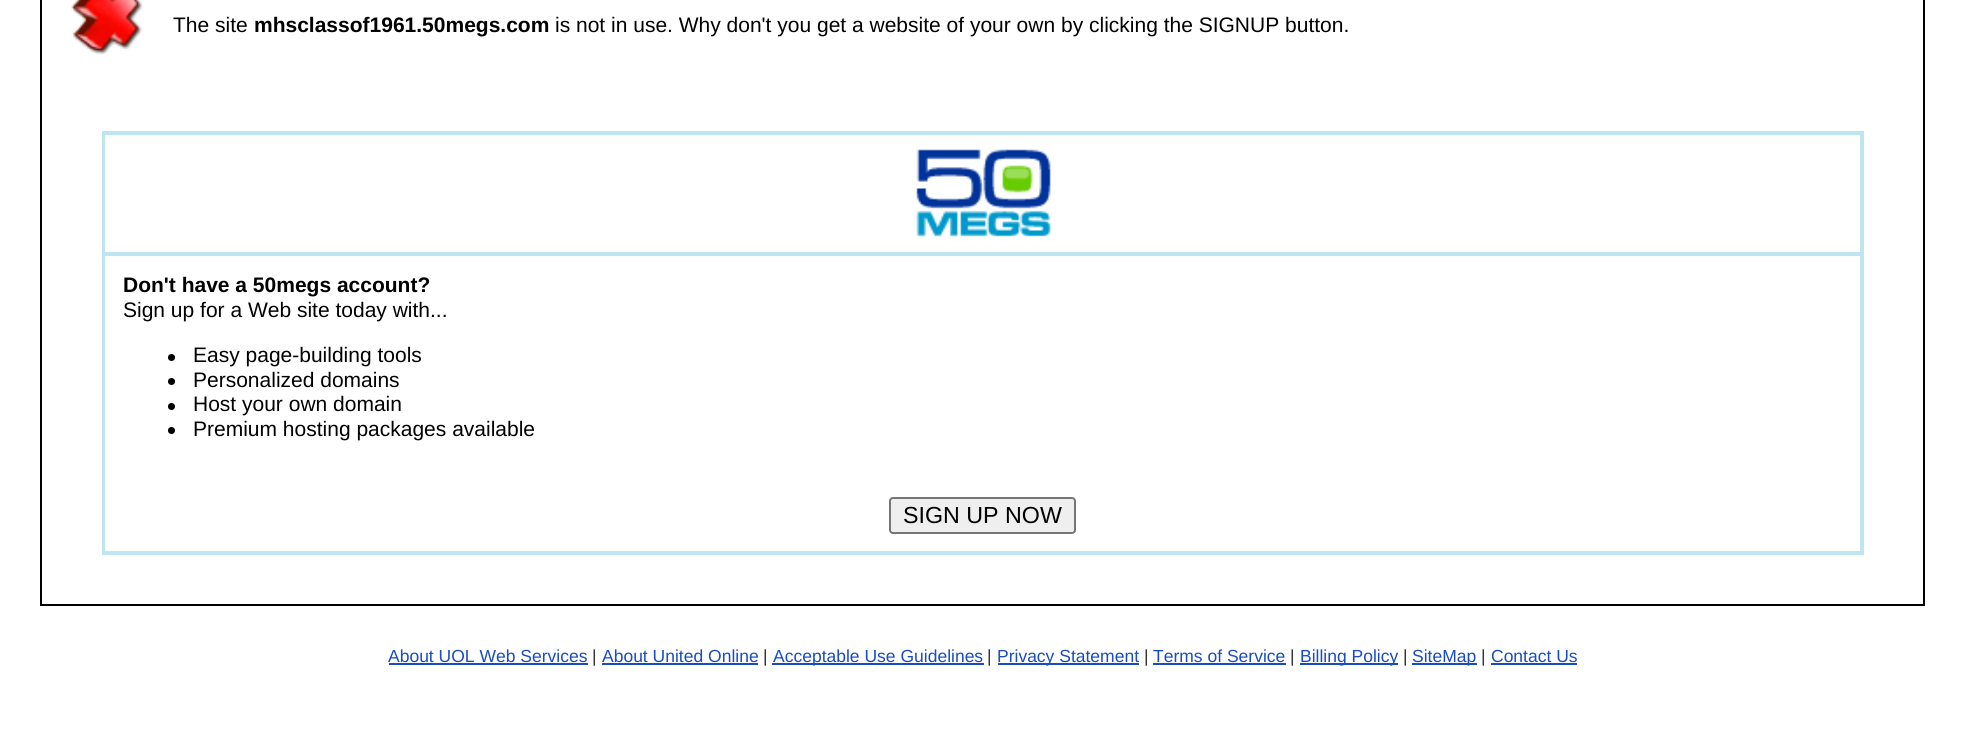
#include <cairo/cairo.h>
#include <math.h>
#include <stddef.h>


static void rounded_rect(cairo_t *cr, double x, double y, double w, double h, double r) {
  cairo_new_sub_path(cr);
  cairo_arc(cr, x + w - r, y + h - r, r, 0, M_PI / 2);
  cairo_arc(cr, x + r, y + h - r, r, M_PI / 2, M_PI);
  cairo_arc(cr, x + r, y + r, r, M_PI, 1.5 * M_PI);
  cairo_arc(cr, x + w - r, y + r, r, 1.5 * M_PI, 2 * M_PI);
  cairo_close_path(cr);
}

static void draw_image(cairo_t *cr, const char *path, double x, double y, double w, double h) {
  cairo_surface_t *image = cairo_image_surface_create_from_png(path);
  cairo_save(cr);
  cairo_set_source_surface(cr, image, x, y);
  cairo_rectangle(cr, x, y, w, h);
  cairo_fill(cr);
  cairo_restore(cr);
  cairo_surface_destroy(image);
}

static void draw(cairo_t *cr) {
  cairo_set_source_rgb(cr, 1, 1, 1);
  cairo_paint(cr);
  cairo_rectangle(cr, 41, -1, 1883, 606);
  cairo_set_source_rgb(cr, 0, 0, 0);
  cairo_stroke(cr);
  draw_image(cr, "images/1.png", 71, 0, 72, 55);
  cairo_rectangle(cr, 103, 132, 1760, 422);
  cairo_set_source_rgb(cr, 191 / 255.0, 229 / 255.0, 242 / 255.0);
  cairo_stroke(cr);
  cairo_rectangle(cr, 104, 134, 1757, 119);
  cairo_stroke(cr);
  draw_image(cr, "images/2.png", 916, 149, 135, 88);
  cairo_rectangle(cr, 104, 255, 1757, 297);
  cairo_stroke(cr);
  cairo_set_source_rgb(cr, 0, 0, 0);
  cairo_arc(cr, 171.5, 357.5, 3.5, 0, 2 * M_PI);
  cairo_fill(cr);
  cairo_arc(cr, 171.5, 381.5, 3.5, 0, 2 * M_PI);
  cairo_fill(cr);
  cairo_arc(cr, 171.5, 406.5, 3.5, 0, 2 * M_PI);
  cairo_fill(cr);
  cairo_arc(cr, 171.5, 430.5, 3.5, 0, 2 * M_PI);
  cairo_fill(cr);
  cairo_set_source_rgb(cr, 239 / 255.0, 239 / 255.0, 239 / 255.0);
  rounded_rect(cr, 890, 498, 185, 35, 3);
  cairo_fill_preserve(cr);
  cairo_set_source_rgb(cr, 118 / 255.0, 118 / 255.0, 118 / 255.0);
  cairo_stroke(cr);
  cairo_set_source_rgb(cr, 24 / 255.0, 76 / 255.0, 195 / 255.0);
  cairo_rectangle(cr, 389, 663, 199, 2);
  cairo_fill(cr);
  cairo_rectangle(cr, 602, 663, 156, 2);
  cairo_fill(cr);
  cairo_rectangle(cr, 772, 663, 212, 2);
  cairo_fill(cr);
  cairo_rectangle(cr, 998, 663, 141, 2);
  cairo_fill(cr);
  cairo_rectangle(cr, 1153, 663, 133, 2);
  cairo_fill(cr);
  cairo_rectangle(cr, 1300, 663, 98, 2);
  cairo_fill(cr);
  cairo_rectangle(cr, 1412, 663, 65, 2);
  cairo_fill(cr);
  cairo_rectangle(cr, 1491, 663, 86, 2);
  cairo_fill(cr);
  cairo_select_font_face(cr, "Liberation Sans", CAIRO_FONT_SLANT_NORMAL, CAIRO_FONT_WEIGHT_NORMAL);
  cairo_set_font_size(cr, 21);
  cairo_set_source_rgb(cr, 0, 0, 0);
  cairo_move_to(cr, 173, 32);
  cairo_show_text(cr, "The site");
  cairo_select_font_face(cr, "Liberation Sans", CAIRO_FONT_SLANT_NORMAL, CAIRO_FONT_WEIGHT_BOLD);
  cairo_move_to(cr, 254, 32);
  cairo_show_text(cr, "mhsclassof1961.50megs.com");
  cairo_select_font_face(cr, "Liberation Sans", CAIRO_FONT_SLANT_NORMAL, CAIRO_FONT_WEIGHT_NORMAL);
  cairo_move_to(cr, 555, 32);
  cairo_show_text(cr, "is not in use. Why don't you get a website of your own by clicking the SIGNUP button.");
  cairo_select_font_face(cr, "Liberation Sans", CAIRO_FONT_SLANT_NORMAL, CAIRO_FONT_WEIGHT_BOLD);
  cairo_move_to(cr, 123, 292);
  cairo_show_text(cr, "Don't have a 50megs account?");
  cairo_select_font_face(cr, "Liberation Sans", CAIRO_FONT_SLANT_NORMAL, CAIRO_FONT_WEIGHT_NORMAL);
  cairo_move_to(cr, 123, 317);
  cairo_show_text(cr, "Sign up for a Web site today with...");
  cairo_move_to(cr, 193, 362);
  cairo_show_text(cr, "Easy page-building tools");
  cairo_move_to(cr, 193, 387);
  cairo_show_text(cr, "Personalized domains");
  cairo_move_to(cr, 193, 411);
  cairo_show_text(cr, "Host your own domain");
  cairo_move_to(cr, 193, 436);
  cairo_show_text(cr, "Premium hosting packages available");
  cairo_set_font_size(cr, 23.25);
  cairo_move_to(cr, 903, 523);
  cairo_show_text(cr, "SIGN UP NOW");
  cairo_set_font_size(cr, 17.5);
  cairo_set_source_rgb(cr, 24 / 255.0, 76 / 255.0, 195 / 255.0);
  cairo_move_to(cr, 388, 662);
  cairo_show_text(cr, "About UOL Web Services");
  cairo_set_source_rgb(cr, 51 / 255.0, 51 / 255.0, 51 / 255.0);
  cairo_move_to(cr, 592, 662);
  cairo_show_text(cr, "|");
  cairo_set_source_rgb(cr, 24 / 255.0, 76 / 255.0, 195 / 255.0);
  cairo_move_to(cr, 602, 662);
  cairo_show_text(cr, "About United Online");
  cairo_set_source_rgb(cr, 51 / 255.0, 51 / 255.0, 51 / 255.0);
  cairo_move_to(cr, 763, 662);
  cairo_show_text(cr, "|");
  cairo_set_source_rgb(cr, 24 / 255.0, 76 / 255.0, 195 / 255.0);
  cairo_move_to(cr, 773, 662);
  cairo_show_text(cr, "Acceptable Use Guidelines");
  cairo_set_source_rgb(cr, 51 / 255.0, 51 / 255.0, 51 / 255.0);
  cairo_move_to(cr, 987, 662);
  cairo_show_text(cr, "|");
  cairo_set_source_rgb(cr, 24 / 255.0, 76 / 255.0, 195 / 255.0);
  cairo_move_to(cr, 997, 662);
  cairo_show_text(cr, "Privacy Statement");
  cairo_set_source_rgb(cr, 51 / 255.0, 51 / 255.0, 51 / 255.0);
  cairo_move_to(cr, 1144, 662);
  cairo_show_text(cr, "|");
  cairo_set_source_rgb(cr, 24 / 255.0, 76 / 255.0, 195 / 255.0);
  cairo_move_to(cr, 1153, 662);
  cairo_show_text(cr, "Terms of Service");
  cairo_set_source_rgb(cr, 51 / 255.0, 51 / 255.0, 51 / 255.0);
  cairo_move_to(cr, 1290, 662);
  cairo_show_text(cr, "|");
  cairo_set_source_rgb(cr, 24 / 255.0, 76 / 255.0, 195 / 255.0);
  cairo_move_to(cr, 1300, 662);
  cairo_show_text(cr, "Billing Policy");
  cairo_set_source_rgb(cr, 51 / 255.0, 51 / 255.0, 51 / 255.0);
  cairo_move_to(cr, 1403, 662);
  cairo_show_text(cr, "|");
  cairo_set_source_rgb(cr, 24 / 255.0, 76 / 255.0, 195 / 255.0);
  cairo_move_to(cr, 1412, 662);
  cairo_show_text(cr, "SiteMap");
  cairo_set_source_rgb(cr, 51 / 255.0, 51 / 255.0, 51 / 255.0);
  cairo_move_to(cr, 1481, 662);
  cairo_show_text(cr, "|");
  cairo_set_source_rgb(cr, 24 / 255.0, 76 / 255.0, 195 / 255.0);
  cairo_move_to(cr, 1491, 662);
  cairo_show_text(cr, "Contact Us");
}

int main(void) {
  cairo_surface_t *surface = cairo_image_surface_create(CAIRO_FORMAT_RGB24, 1964, 754);
  cairo_t *cr = cairo_create(surface);
  cairo_font_options_t *options = cairo_font_options_create();
  cairo_font_options_set_hint_metrics(options, CAIRO_HINT_METRICS_OFF);
  cairo_font_options_set_hint_style(options, CAIRO_HINT_STYLE_NONE);
  cairo_set_font_options(cr, options);
  cairo_set_miter_limit(cr, 4);
  draw(cr);
  cairo_surface_write_to_png(surface, "out.png");
  cairo_font_options_destroy(options);
  cairo_destroy(cr);
  cairo_surface_destroy(surface);
  return 0;
}
